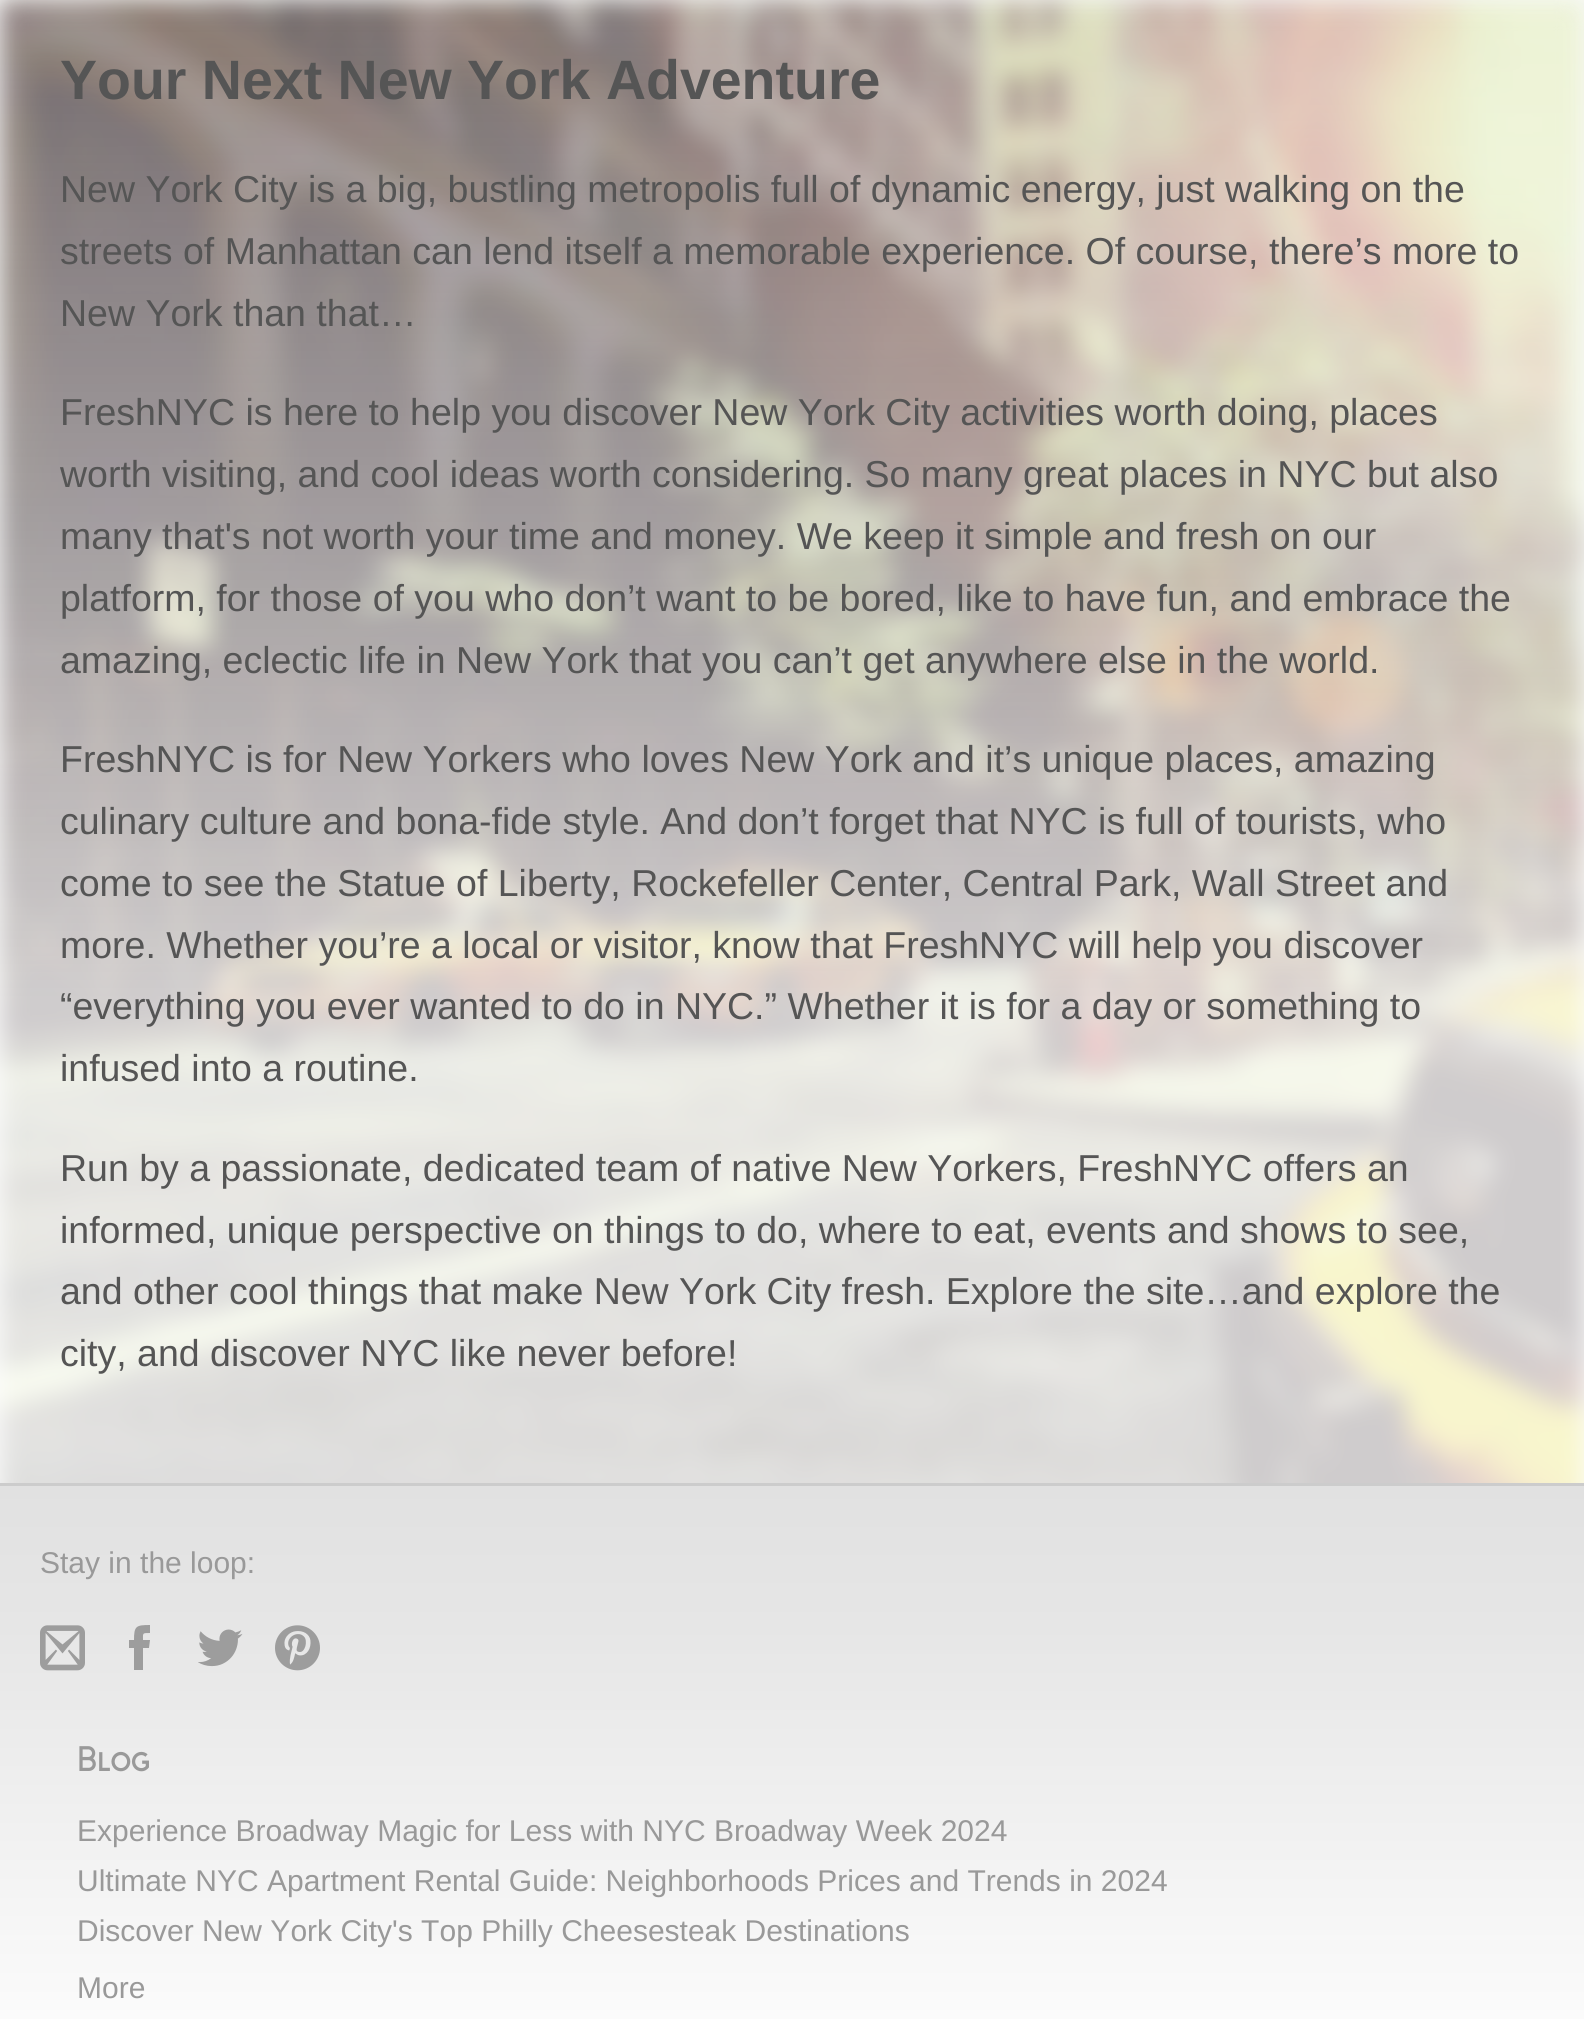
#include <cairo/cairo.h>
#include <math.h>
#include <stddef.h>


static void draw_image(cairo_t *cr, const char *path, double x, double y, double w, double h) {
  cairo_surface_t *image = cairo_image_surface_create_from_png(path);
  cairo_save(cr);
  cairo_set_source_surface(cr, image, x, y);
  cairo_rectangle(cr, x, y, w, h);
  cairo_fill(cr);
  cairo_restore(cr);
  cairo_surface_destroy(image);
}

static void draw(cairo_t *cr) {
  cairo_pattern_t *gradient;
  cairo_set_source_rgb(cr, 246 / 255.0, 247 / 255.0, 247 / 255.0);
  cairo_paint(cr);
  draw_image(cr, "images/1.png", 0, 0, 1584, 1483);
  gradient = cairo_pattern_create_linear(792, -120, 793, 1483);
  cairo_pattern_add_color_stop_rgba(gradient, 0, 1, 1, 1, 0.1);
  cairo_pattern_add_color_stop_rgba(gradient, 0.05, 1, 1, 1, 0.25);
  cairo_pattern_add_color_stop_rgba(gradient, 0.7, 1, 1, 1, 0.75);
  cairo_set_source(cr, gradient);
  cairo_pattern_destroy(gradient);
  cairo_rectangle(cr, 0, 0, 1584, 1483);
  cairo_fill(cr);
  gradient = cairo_pattern_create_linear(793, 1485, 793, 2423);
  cairo_pattern_add_color_stop_rgba(gradient, 0, 225 / 255.0, 225 / 255.0, 225 / 255.0, 1);
  cairo_pattern_add_color_stop_rgba(gradient, 0.15, 230 / 255.0, 230 / 255.0, 230 / 255.0, 1);
  cairo_pattern_add_color_stop_rgba(gradient, 0.65, 1, 1, 1, 1);
  cairo_set_source(cr, gradient);
  cairo_pattern_destroy(gradient);
  cairo_rectangle(cr, 0, 1486, 1584, 533);
  cairo_fill(cr);
  cairo_set_source_rgb(cr, 204 / 255.0, 204 / 255.0, 204 / 255.0);
  cairo_rectangle(cr, 0, 1483, 1584, 3);
  cairo_fill(cr);
  draw_image(cr, "images/2.png", 40, 1625, 45, 46);
  cairo_set_source_rgb(cr, 157 / 255.0, 157 / 255.0, 157 / 255.0);
  cairo_new_path(cr);
  cairo_move_to(cr, 143, 1670);
  cairo_line_to(cr, 134, 1670);
  cairo_line_to(cr, 134, 1648);
  cairo_line_to(cr, 129, 1648);
  cairo_line_to(cr, 129, 1640);
  cairo_line_to(cr, 134, 1640);
  cairo_curve_to(cr, 134, 1626, 136, 1625, 150, 1625);
  cairo_line_to(cr, 150, 1633);
  cairo_curve_to(cr, 142, 1633, 143, 1633, 143, 1640);
  cairo_line_to(cr, 150, 1640);
  cairo_line_to(cr, 149, 1648);
  cairo_line_to(cr, 143, 1648);
  cairo_close_path(cr);
  cairo_fill(cr);
  draw_image(cr, "images/3.png", 198, 1629, 45, 38);
  draw_image(cr, "images/4.png", 275, 1625, 45, 46);
  cairo_select_font_face(cr, "Liberation Sans", CAIRO_FONT_SLANT_NORMAL, CAIRO_FONT_WEIGHT_BOLD);
  cairo_set_font_size(cr, 55.5);
  cairo_set_source_rgb(cr, 85 / 255.0, 85 / 255.0, 85 / 255.0);
  cairo_move_to(cr, 60, 99);
  cairo_show_text(cr, "Your Next New York Adventure");
  cairo_select_font_face(cr, "Liberation Sans", CAIRO_FONT_SLANT_NORMAL, CAIRO_FONT_WEIGHT_NORMAL);
  cairo_set_font_size(cr, 37.5);
  cairo_move_to(cr, 60, 202);
  cairo_show_text(cr, "New York City is a big, bustling metropolis full of dynamic energy, just walking on the");
  cairo_move_to(cr, 60, 264);
  cairo_show_text(cr, "streets of Manhattan can lend itself a memorable experience. Of course, there’s more to");
  cairo_move_to(cr, 60, 326);
  cairo_show_text(cr, "New York than that…");
  cairo_move_to(cr, 60, 425);
  cairo_show_text(cr, "FreshNYC is here to help you discover New York City activities worth doing, places");
  cairo_move_to(cr, 60, 487);
  cairo_show_text(cr, "worth visiting, and cool ideas worth considering. So many great places in NYC but also");
  cairo_move_to(cr, 60, 549);
  cairo_show_text(cr, "many that's not worth your time and money. We keep it simple and fresh on our");
  cairo_move_to(cr, 60, 611);
  cairo_show_text(cr, "platform, for those of you who don’t want to be bored, like to have fun, and embrace the");
  cairo_move_to(cr, 60, 673);
  cairo_show_text(cr, "amazing, eclectic life in New York that you can’t get anywhere else in the world.");
  cairo_move_to(cr, 60, 772);
  cairo_show_text(cr, "FreshNYC is for New Yorkers who loves New York and it’s unique places, amazing");
  cairo_move_to(cr, 60, 834);
  cairo_show_text(cr, "culinary culture and bona-fide style. And don’t forget that NYC is full of tourists, who");
  cairo_move_to(cr, 60, 896);
  cairo_show_text(cr, "come to see the Statue of Liberty, Rockefeller Center, Central Park, Wall Street and");
  cairo_move_to(cr, 60, 958);
  cairo_show_text(cr, "more. Whether you’re a local or visitor, know that FreshNYC will help you discover");
  cairo_move_to(cr, 60, 1019);
  cairo_show_text(cr, "“everything you ever wanted to do in NYC.” Whether it is for a day or something to");
  cairo_move_to(cr, 60, 1081);
  cairo_show_text(cr, "infused into a routine.");
  cairo_move_to(cr, 60, 1181);
  cairo_show_text(cr, "Run by a passionate, dedicated team of native New Yorkers, FreshNYC offers an");
  cairo_move_to(cr, 60, 1243);
  cairo_show_text(cr, "informed, unique perspective on things to do, where to eat, events and shows to see,");
  cairo_move_to(cr, 60, 1304);
  cairo_show_text(cr, "and other cool things that make New York City fresh. Explore the site…and explore the");
  cairo_move_to(cr, 60, 1366);
  cairo_show_text(cr, "city, and discover NYC like never before!");
  cairo_set_font_size(cr, 30);
  cairo_set_source_rgb(cr, 153 / 255.0, 153 / 255.0, 153 / 255.0);
  cairo_move_to(cr, 40, 1573);
  cairo_show_text(cr, "Stay in the loop:");
  cairo_select_font_face(cr, "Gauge", CAIRO_FONT_SLANT_NORMAL, CAIRO_FONT_WEIGHT_BOLD);
  cairo_move_to(cr, 77, 1771);
  cairo_show_text(cr, "Blog");
  cairo_select_font_face(cr, "Liberation Sans", CAIRO_FONT_SLANT_NORMAL, CAIRO_FONT_WEIGHT_NORMAL);
  cairo_move_to(cr, 77, 1841);
  cairo_show_text(cr, "Experience Broadway Magic for Less with NYC Broadway Week 2024");
  cairo_move_to(cr, 77, 1891);
  cairo_show_text(cr, "Ultimate NYC Apartment Rental Guide: Neighborhoods Prices and Trends in 2024");
  cairo_move_to(cr, 77, 1941);
  cairo_show_text(cr, "Discover New York City's Top Philly Cheesesteak Destinations");
  cairo_move_to(cr, 77, 1998);
  cairo_show_text(cr, "More");
}

int main(void) {
  cairo_surface_t *surface = cairo_image_surface_create(CAIRO_FORMAT_RGB24, 1584, 2019);
  cairo_t *cr = cairo_create(surface);
  cairo_font_options_t *options = cairo_font_options_create();
  cairo_font_options_set_hint_metrics(options, CAIRO_HINT_METRICS_OFF);
  cairo_font_options_set_hint_style(options, CAIRO_HINT_STYLE_NONE);
  cairo_set_font_options(cr, options);
  cairo_set_miter_limit(cr, 4);
  draw(cr);
  cairo_surface_write_to_png(surface, "out.png");
  cairo_font_options_destroy(options);
  cairo_destroy(cr);
  cairo_surface_destroy(surface);
  return 0;
}
